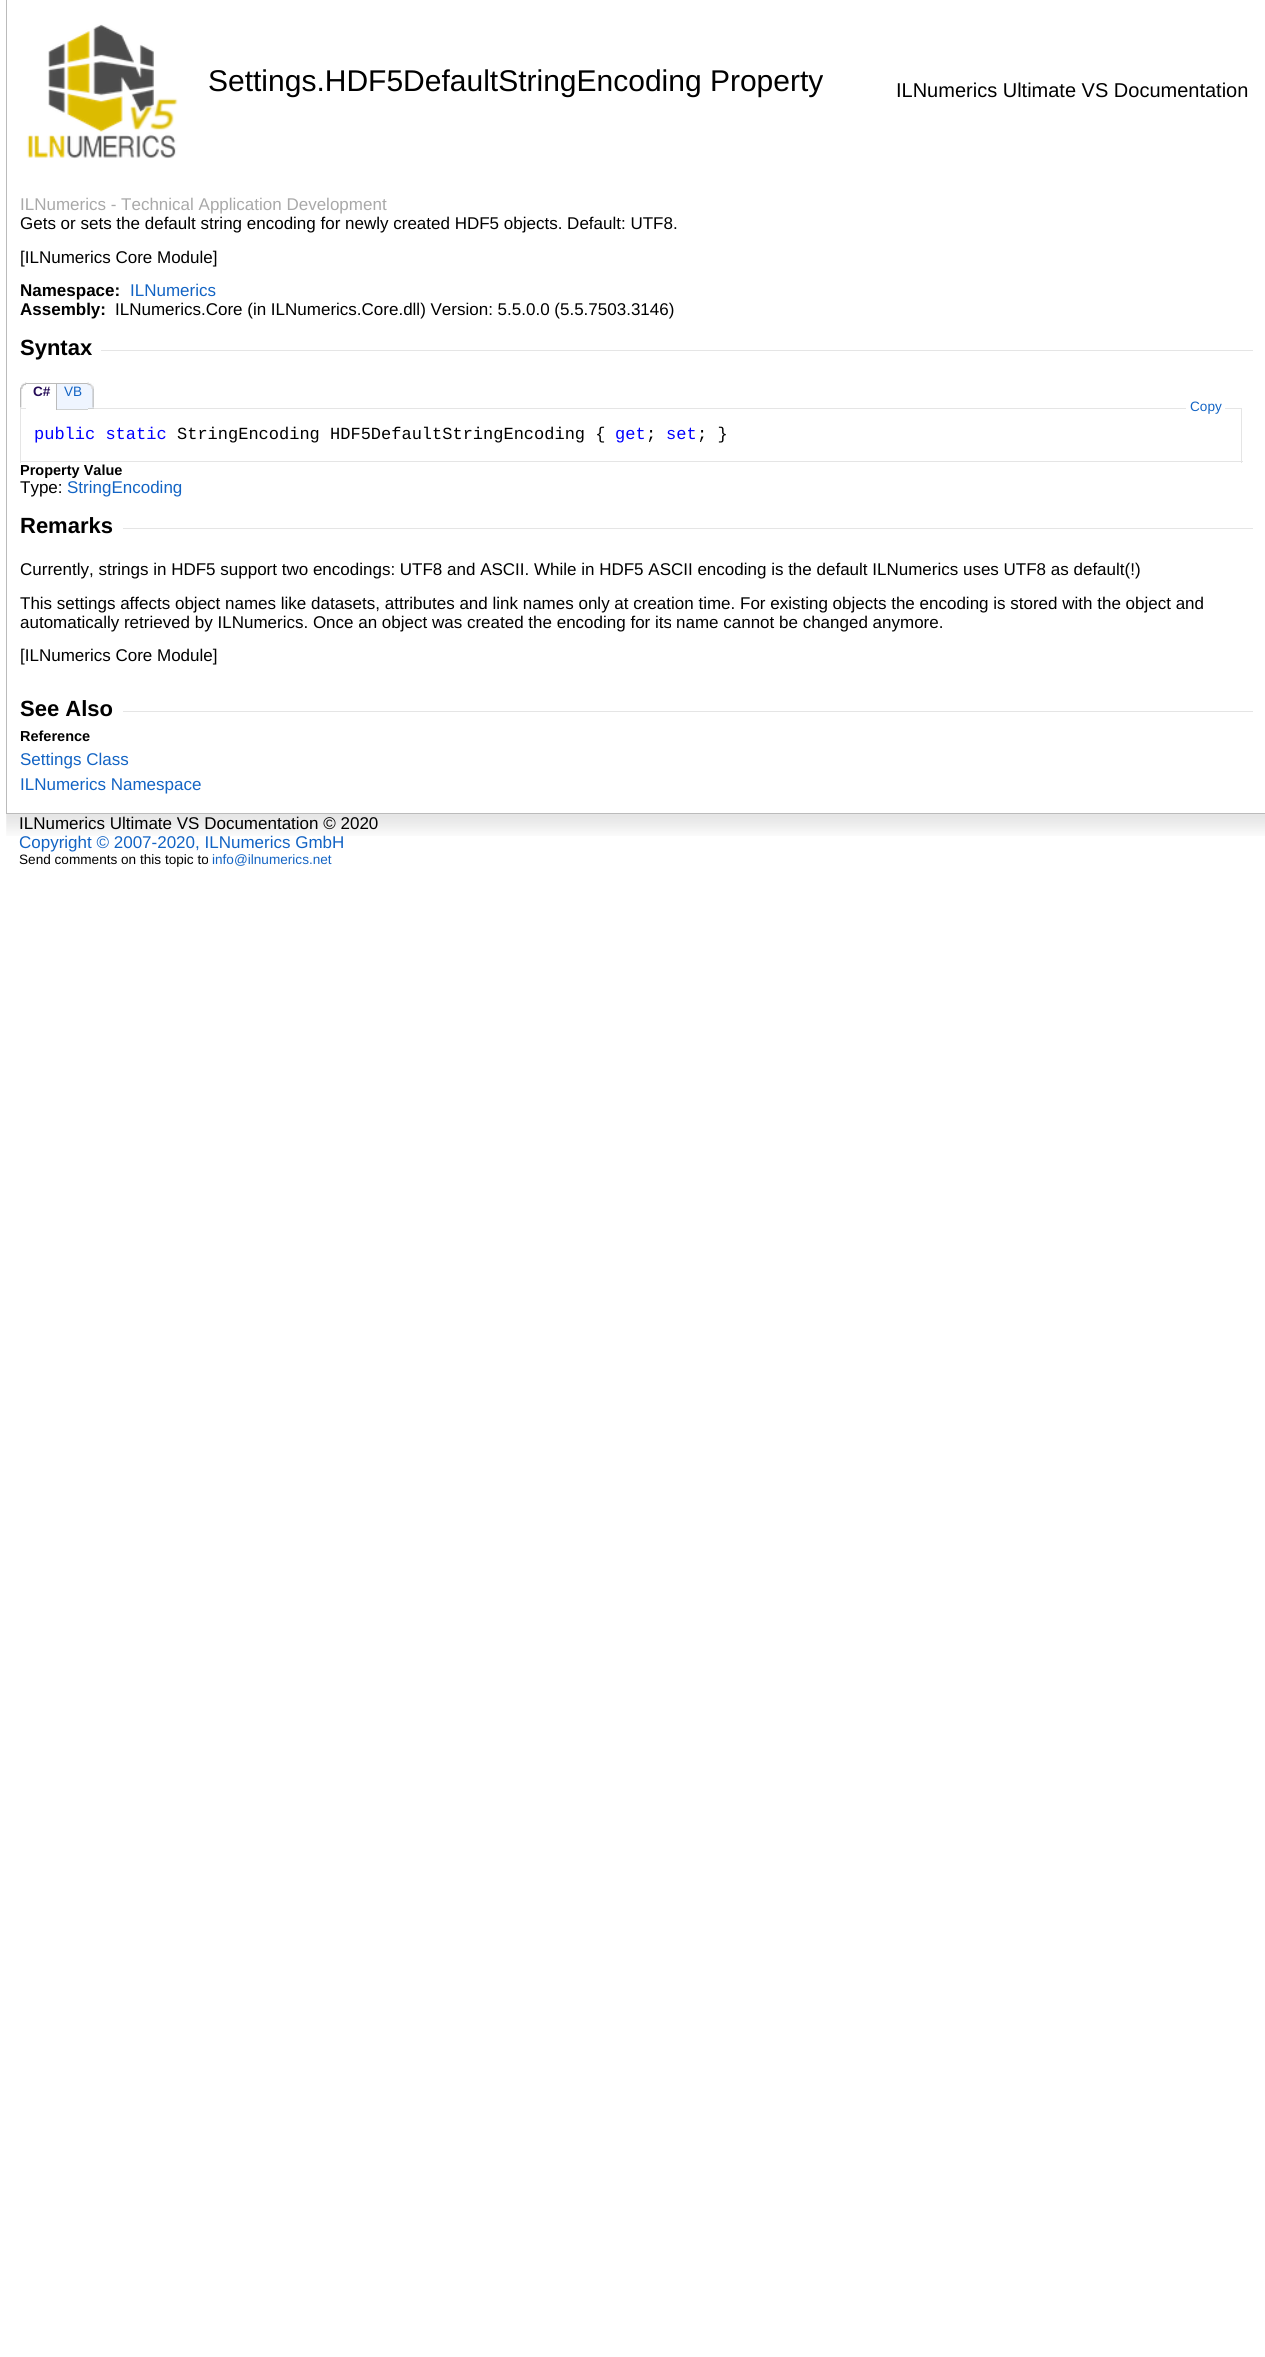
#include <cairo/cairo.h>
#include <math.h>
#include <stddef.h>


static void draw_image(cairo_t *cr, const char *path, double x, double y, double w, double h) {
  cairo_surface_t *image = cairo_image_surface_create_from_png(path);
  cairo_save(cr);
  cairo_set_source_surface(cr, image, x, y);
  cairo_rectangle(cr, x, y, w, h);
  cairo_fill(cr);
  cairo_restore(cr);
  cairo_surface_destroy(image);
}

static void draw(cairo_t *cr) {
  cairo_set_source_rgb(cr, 1, 1, 1);
  cairo_paint(cr);
  cairo_set_source_rgb(cr, 187 / 255.0, 187 / 255.0, 187 / 255.0);
  cairo_rectangle(cr, 6, 0, 1, 813);
  cairo_fill(cr);
  draw_image(cr, "images/1.png", 27, 24, 151, 135);
  cairo_set_source_rgb(cr, 229 / 255.0, 229 / 255.0, 229 / 255.0);
  cairo_rectangle(cr, 101, 350, 1152, 1);
  cairo_fill(cr);
  draw_image(cr, "images/2.png", 20, 382, 7, 26);
  cairo_rectangle(cr, 21, 408, 1220, 1);
  cairo_fill(cr);
  cairo_set_source_rgb(cr, 1, 1, 1);
  cairo_rectangle(cr, 26, 384, 30, 25);
  cairo_fill(cr);
  cairo_set_source_rgb(cr, 187 / 255.0, 187 / 255.0, 187 / 255.0);
  cairo_rectangle(cr, 26, 383, 62, 1);
  cairo_fill(cr);
  cairo_set_source_rgb(cr, 239 / 255.0, 245 / 255.0, 1);
  cairo_rectangle(cr, 57, 384, 31, 25);
  cairo_fill(cr);
  cairo_set_source_rgb(cr, 208 / 255.0, 210 / 255.0, 210 / 255.0);
  cairo_rectangle(cr, 56, 409, 32, 1);
  cairo_fill(cr);
  cairo_set_source_rgb(cr, 187 / 255.0, 187 / 255.0, 187 / 255.0);
  cairo_rectangle(cr, 56, 383, 1, 27);
  cairo_fill(cr);
  cairo_set_source_rgb(cr, 239 / 255.0, 245 / 255.0, 1);
  cairo_rectangle(cr, 88, 383, 6, 26);
  cairo_fill(cr);
  draw_image(cr, "images/3.png", 87, 382, 7, 26);
  cairo_set_source_rgb(cr, 208 / 255.0, 210 / 255.0, 210 / 255.0);
  cairo_rectangle(cr, 88, 408, 6, 1);
  cairo_fill(cr);
  cairo_set_source_rgb(cr, 229 / 255.0, 229 / 255.0, 229 / 255.0);
  cairo_rectangle(cr, 1241, 408, 1, 55);
  cairo_fill(cr);
  cairo_rectangle(cr, 20, 461, 1223, 1);
  cairo_fill(cr);
  cairo_rectangle(cr, 20, 408, 1, 55);
  cairo_fill(cr);
  cairo_set_source_rgb(cr, 1, 1, 1);
  cairo_rectangle(cr, 1186, 408, 39, 1);
  cairo_fill(cr);
  cairo_set_source_rgb(cr, 229 / 255.0, 229 / 255.0, 229 / 255.0);
  cairo_rectangle(cr, 123, 528, 1130, 1);
  cairo_fill(cr);
  cairo_rectangle(cr, 123, 711, 1130, 1);
  cairo_fill(cr);
  draw_image(cr, "images/4.png", 6, 814, 1259, 22);
  cairo_set_source_rgb(cr, 187 / 255.0, 187 / 255.0, 187 / 255.0);
  cairo_rectangle(cr, 6, 813, 1259, 1);
  cairo_fill(cr);
  cairo_select_font_face(cr, "Liberation Sans", CAIRO_FONT_SLANT_NORMAL, CAIRO_FONT_WEIGHT_NORMAL);
  cairo_set_font_size(cr, 30);
  cairo_set_source_rgb(cr, 0, 0, 0);
  cairo_move_to(cr, 208, 91);
  cairo_show_text(cr, "Settings.HDF5DefaultStringEncoding Property");
  cairo_set_font_size(cr, 20);
  cairo_move_to(cr, 896, 97);
  cairo_show_text(cr, "ILNumerics Ultimate VS Documentation");
  cairo_set_font_size(cr, 17);
  cairo_set_source_rgb(cr, 169 / 255.0, 169 / 255.0, 169 / 255.0);
  cairo_move_to(cr, 20, 210);
  cairo_show_text(cr, "ILNumerics - Technical Application Development");
  cairo_set_source_rgb(cr, 0, 0, 0);
  cairo_move_to(cr, 20, 229);
  cairo_show_text(cr, "Gets or sets the default string encoding for newly created HDF5 objects. Default: UTF8.");
  cairo_move_to(cr, 20, 263);
  cairo_show_text(cr, "[ILNumerics Core Module]");
  cairo_select_font_face(cr, "Liberation Sans", CAIRO_FONT_SLANT_NORMAL, CAIRO_FONT_WEIGHT_BOLD);
  cairo_move_to(cr, 20, 296);
  cairo_show_text(cr, "Namespace:");
  cairo_select_font_face(cr, "Liberation Sans", CAIRO_FONT_SLANT_NORMAL, CAIRO_FONT_WEIGHT_NORMAL);
  cairo_set_source_rgb(cr, 19 / 255.0, 100 / 255.0, 196 / 255.0);
  cairo_move_to(cr, 130, 296);
  cairo_show_text(cr, "ILNumerics");
  cairo_select_font_face(cr, "Liberation Sans", CAIRO_FONT_SLANT_NORMAL, CAIRO_FONT_WEIGHT_BOLD);
  cairo_set_source_rgb(cr, 0, 0, 0);
  cairo_move_to(cr, 20, 315);
  cairo_show_text(cr, "Assembly:");
  cairo_select_font_face(cr, "Liberation Sans", CAIRO_FONT_SLANT_NORMAL, CAIRO_FONT_WEIGHT_NORMAL);
  cairo_move_to(cr, 115, 315);
  cairo_show_text(cr, "ILNumerics.Core (in ILNumerics.Core.dll) Version: 5.5.0.0 (5.5.7503.3146)");
  cairo_select_font_face(cr, "Liberation Sans", CAIRO_FONT_SLANT_NORMAL, CAIRO_FONT_WEIGHT_BOLD);
  cairo_set_font_size(cr, 22);
  cairo_move_to(cr, 20, 355);
  cairo_show_text(cr, "Syntax");
  cairo_set_font_size(cr, 13.6);
  cairo_set_source_rgb(cr, 37 / 255.0, 12 / 255.0, 88 / 255.0);
  cairo_move_to(cr, 33, 396);
  cairo_show_text(cr, "C#");
  cairo_select_font_face(cr, "Liberation Sans", CAIRO_FONT_SLANT_NORMAL, CAIRO_FONT_WEIGHT_NORMAL);
  cairo_set_source_rgb(cr, 19 / 255.0, 100 / 255.0, 196 / 255.0);
  cairo_move_to(cr, 64, 396);
  cairo_show_text(cr, "VB");
  cairo_move_to(cr, 1190, 411);
  cairo_show_text(cr, "Copy");
  cairo_select_font_face(cr, "Liberation Mono", CAIRO_FONT_SLANT_NORMAL, CAIRO_FONT_WEIGHT_NORMAL);
  cairo_set_font_size(cr, 17);
  cairo_set_source_rgb(cr, 0, 0, 1);
  cairo_move_to(cr, 34, 439);
  cairo_show_text(cr, "public static");
  cairo_set_source_rgb(cr, 0, 0, 0);
  cairo_move_to(cr, 177, 439);
  cairo_show_text(cr, "StringEncoding HDF5DefaultStringEncoding {");
  cairo_set_source_rgb(cr, 0, 0, 1);
  cairo_move_to(cr, 615, 439);
  cairo_show_text(cr, "get");
  cairo_set_source_rgb(cr, 0, 0, 0);
  cairo_move_to(cr, 646, 439);
  cairo_show_text(cr, ";");
  cairo_set_source_rgb(cr, 0, 0, 1);
  cairo_move_to(cr, 666, 439);
  cairo_show_text(cr, "set");
  cairo_set_source_rgb(cr, 0, 0, 0);
  cairo_move_to(cr, 697, 439);
  cairo_show_text(cr, "; }");
  cairo_select_font_face(cr, "Liberation Sans", CAIRO_FONT_SLANT_NORMAL, CAIRO_FONT_WEIGHT_BOLD);
  cairo_set_font_size(cr, 14.5);
  cairo_move_to(cr, 20, 475);
  cairo_show_text(cr, "Property Value");
  cairo_select_font_face(cr, "Liberation Sans", CAIRO_FONT_SLANT_NORMAL, CAIRO_FONT_WEIGHT_NORMAL);
  cairo_set_font_size(cr, 17);
  cairo_move_to(cr, 20, 493);
  cairo_show_text(cr, "Type:");
  cairo_set_source_rgb(cr, 19 / 255.0, 100 / 255.0, 196 / 255.0);
  cairo_move_to(cr, 67, 493);
  cairo_show_text(cr, "StringEncoding");
  cairo_select_font_face(cr, "Liberation Sans", CAIRO_FONT_SLANT_NORMAL, CAIRO_FONT_WEIGHT_BOLD);
  cairo_set_font_size(cr, 22);
  cairo_set_source_rgb(cr, 0, 0, 0);
  cairo_move_to(cr, 20, 533);
  cairo_show_text(cr, "Remarks");
  cairo_select_font_face(cr, "Liberation Sans", CAIRO_FONT_SLANT_NORMAL, CAIRO_FONT_WEIGHT_NORMAL);
  cairo_set_font_size(cr, 17);
  cairo_move_to(cr, 20, 575);
  cairo_show_text(cr, "Currently, strings in HDF5 support two encodings: UTF8 and ASCII. While in HDF5 ASCII encoding is the default ILNumerics uses UTF8 as default(!)");
  cairo_move_to(cr, 20, 609);
  cairo_show_text(cr, "This settings affects object names like datasets, attributes and link names only at creation time. For existing objects the encoding is stored with the object and");
  cairo_move_to(cr, 20, 628);
  cairo_show_text(cr, "automatically retrieved by ILNumerics. Once an object was created the encoding for its");
  cairo_move_to(cr, 676, 628);
  cairo_show_text(cr, "name cannot be changed anymore.");
  cairo_move_to(cr, 20, 661);
  cairo_show_text(cr, "[ILNumerics Core Module]");
  cairo_select_font_face(cr, "Liberation Sans", CAIRO_FONT_SLANT_NORMAL, CAIRO_FONT_WEIGHT_BOLD);
  cairo_set_font_size(cr, 22);
  cairo_move_to(cr, 20, 716);
  cairo_show_text(cr, "See Also");
  cairo_set_font_size(cr, 14.5);
  cairo_move_to(cr, 20, 741);
  cairo_show_text(cr, "Reference");
  cairo_select_font_face(cr, "Liberation Sans", CAIRO_FONT_SLANT_NORMAL, CAIRO_FONT_WEIGHT_NORMAL);
  cairo_set_font_size(cr, 17);
  cairo_set_source_rgb(cr, 19 / 255.0, 100 / 255.0, 196 / 255.0);
  cairo_move_to(cr, 20, 765);
  cairo_show_text(cr, "Settings Class");
  cairo_move_to(cr, 20, 790);
  cairo_show_text(cr, "ILNumerics Namespace");
  cairo_set_source_rgb(cr, 0, 0, 0);
  cairo_move_to(cr, 19, 829);
  cairo_show_text(cr, "ILNumerics Ultimate VS Documentation © 2020");
  cairo_set_source_rgb(cr, 19 / 255.0, 100 / 255.0, 196 / 255.0);
  cairo_move_to(cr, 19, 848);
  cairo_show_text(cr, "Copyright © 2007-2020, ILNumerics GmbH");
  cairo_set_font_size(cr, 13.6);
  cairo_set_source_rgb(cr, 0, 0, 0);
  cairo_move_to(cr, 19, 864);
  cairo_show_text(cr, "Send comments on this topic to");
  cairo_set_source_rgb(cr, 19 / 255.0, 100 / 255.0, 196 / 255.0);
  cairo_move_to(cr, 212, 864);
  cairo_show_text(cr, "info@ilnumerics.net");
}

int main(void) {
  cairo_surface_t *surface = cairo_image_surface_create(CAIRO_FORMAT_RGB24, 1265, 2357);
  cairo_t *cr = cairo_create(surface);
  cairo_font_options_t *options = cairo_font_options_create();
  cairo_font_options_set_hint_metrics(options, CAIRO_HINT_METRICS_OFF);
  cairo_font_options_set_hint_style(options, CAIRO_HINT_STYLE_NONE);
  cairo_set_font_options(cr, options);
  cairo_set_miter_limit(cr, 4);
  draw(cr);
  cairo_surface_write_to_png(surface, "out.png");
  cairo_font_options_destroy(options);
  cairo_destroy(cr);
  cairo_surface_destroy(surface);
  return 0;
}
